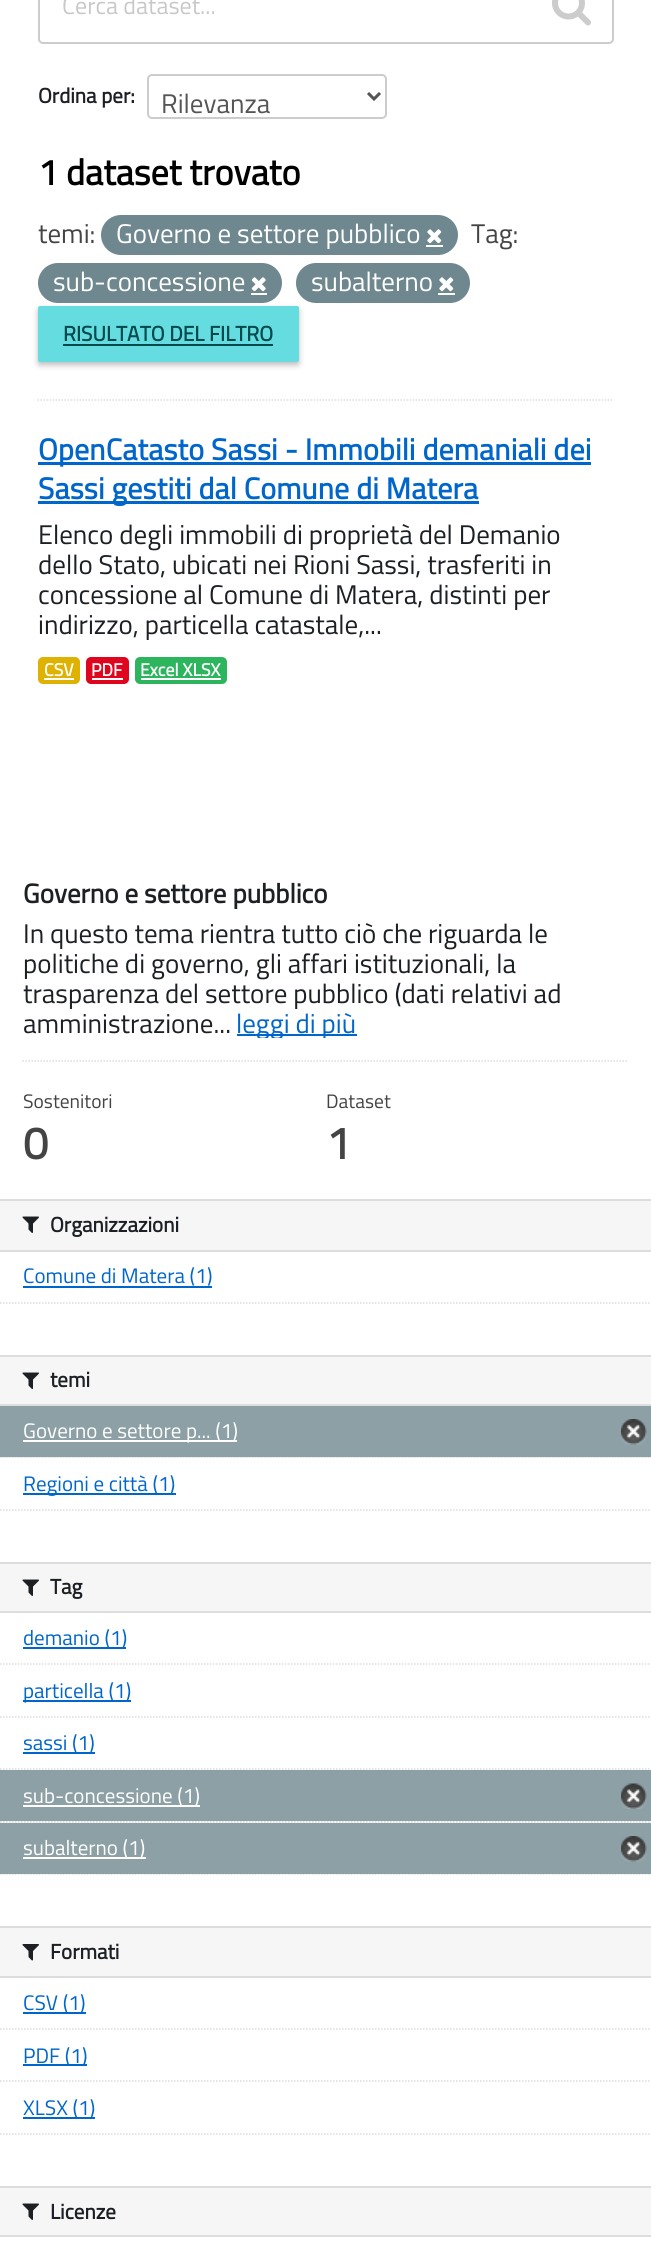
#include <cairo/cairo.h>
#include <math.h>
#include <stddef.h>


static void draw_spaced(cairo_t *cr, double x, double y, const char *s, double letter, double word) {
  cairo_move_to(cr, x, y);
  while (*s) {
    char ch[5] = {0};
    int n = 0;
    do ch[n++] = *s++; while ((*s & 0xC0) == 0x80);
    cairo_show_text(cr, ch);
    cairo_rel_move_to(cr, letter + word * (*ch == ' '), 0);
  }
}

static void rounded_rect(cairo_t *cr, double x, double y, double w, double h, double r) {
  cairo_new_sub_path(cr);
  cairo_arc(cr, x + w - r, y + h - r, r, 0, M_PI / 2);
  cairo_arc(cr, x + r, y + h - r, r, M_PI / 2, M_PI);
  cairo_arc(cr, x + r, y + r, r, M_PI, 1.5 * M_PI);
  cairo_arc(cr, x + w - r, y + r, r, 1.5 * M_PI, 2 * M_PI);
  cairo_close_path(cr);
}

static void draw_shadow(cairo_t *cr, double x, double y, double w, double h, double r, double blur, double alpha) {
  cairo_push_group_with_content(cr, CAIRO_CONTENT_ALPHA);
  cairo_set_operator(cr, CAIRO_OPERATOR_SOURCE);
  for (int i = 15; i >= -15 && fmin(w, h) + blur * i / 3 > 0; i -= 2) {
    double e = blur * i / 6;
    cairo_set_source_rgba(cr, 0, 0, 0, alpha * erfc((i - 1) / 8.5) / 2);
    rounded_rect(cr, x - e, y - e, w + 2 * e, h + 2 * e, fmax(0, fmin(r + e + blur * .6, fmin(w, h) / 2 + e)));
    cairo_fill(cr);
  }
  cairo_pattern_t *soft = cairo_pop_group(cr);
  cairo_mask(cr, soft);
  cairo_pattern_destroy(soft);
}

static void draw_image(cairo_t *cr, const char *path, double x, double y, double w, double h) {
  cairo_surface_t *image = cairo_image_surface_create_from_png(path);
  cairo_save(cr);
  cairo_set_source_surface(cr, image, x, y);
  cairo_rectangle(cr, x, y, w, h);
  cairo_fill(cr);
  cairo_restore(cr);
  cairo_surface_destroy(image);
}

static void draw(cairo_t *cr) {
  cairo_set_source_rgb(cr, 1, 1, 1);
  cairo_paint(cr);
  cairo_new_path(cr);
  cairo_move_to(cr, 37.5, 400);
  cairo_line_to(cr, 613.5, 400);
  cairo_set_source_rgb(cr, 221 / 255.0, 221 / 255.0, 221 / 255.0);
  cairo_set_line_width(cr, 1.5);
  cairo_set_dash(cr, (double[]){1.5, 1.5}, 2, 0);
  cairo_stroke(cr);
  rounded_rect(cr, 39, -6, 574, 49, 4);
  cairo_set_source_rgb(cr, 204 / 255.0, 204 / 255.0, 204 / 255.0);
  cairo_set_line_width(cr, 2);
  cairo_set_dash(cr, NULL, 0, 0);
  cairo_stroke(cr);
  draw_image(cr, "images/1.png", 552, 0, 39, 26);
  rounded_rect(cr, 148, 75, 238, 43, 4);
  cairo_stroke(cr);
  cairo_new_path(cr);
  cairo_move_to(cr, 368, 93);
  cairo_line_to(cr, 374, 99);
  cairo_line_to(cr, 380, 93);
  cairo_set_source_rgb(cr, 85 / 255.0, 85 / 255.0, 85 / 255.0);
  cairo_set_line_width(cr, 3);
  cairo_stroke(cr);
  cairo_set_source_rgb(cr, 111 / 255.0, 136 / 255.0, 144 / 255.0);
  rounded_rect(cr, 101, 215, 357, 40, 20);
  cairo_fill(cr);
  cairo_set_source_rgb(cr, 1, 1, 1);
  cairo_rectangle(cr, 426, 245, 17, 2);
  cairo_fill(cr);
  draw_image(cr, "images/2.png", 427, 229, 15, 15);
  cairo_set_source_rgb(cr, 111 / 255.0, 136 / 255.0, 144 / 255.0);
  rounded_rect(cr, 38, 263, 244, 40, 20);
  cairo_fill(cr);
  cairo_set_source_rgb(cr, 1, 1, 1);
  cairo_rectangle(cr, 251, 293, 16, 2);
  cairo_fill(cr);
  draw_image(cr, "images/3.png", 251, 277, 15, 15);
  cairo_set_source_rgb(cr, 111 / 255.0, 136 / 255.0, 144 / 255.0);
  rounded_rect(cr, 296, 263, 174, 40, 20);
  cairo_fill(cr);
  cairo_set_source_rgb(cr, 1, 1, 1);
  cairo_rectangle(cr, 438, 293, 17, 2);
  cairo_fill(cr);
  draw_image(cr, "images/2.png", 439, 277, 15, 15);
  cairo_set_source_rgb(cr, 189 / 255.0, 189 / 255.0, 189 / 255.0);
  draw_shadow(cr, 38, 309, 261, 56, 2, 3, 1);
  cairo_set_source_rgb(cr, 101 / 255.0, 221 / 255.0, 224 / 255.0);
  rounded_rect(cr, 38, 306, 261, 56, 2);
  cairo_fill(cr);
  cairo_set_source_rgb(cr, 0, 74 / 255.0, 77 / 255.0);
  cairo_rectangle(cr, 63, 344, 210, 2);
  cairo_fill(cr);
  cairo_set_source_rgb(cr, 0, 102 / 255.0, 204 / 255.0);
  cairo_rectangle(cr, 38, 462, 553, 3);
  cairo_fill(cr);
  cairo_rectangle(cr, 38, 501, 441, 3);
  cairo_fill(cr);
  cairo_set_source_rgb(cr, 223 / 255.0, 177 / 255.0, 0);
  rounded_rect(cr, 38, 657, 42, 27, 5);
  cairo_fill(cr);
  cairo_set_source_rgb(cr, 1, 1, 1);
  cairo_rectangle(cr, 44, 678, 30, 2);
  cairo_fill(cr);
  cairo_set_source_rgb(cr, 224 / 255.0, 5 / 255.0, 30 / 255.0);
  rounded_rect(cr, 86, 657, 43, 27, 5);
  cairo_fill(cr);
  cairo_set_source_rgb(cr, 1, 1, 1);
  cairo_rectangle(cr, 92, 678, 31, 2);
  cairo_fill(cr);
  cairo_set_source_rgb(cr, 45 / 255.0, 181 / 255.0, 93 / 255.0);
  rounded_rect(cr, 135, 657, 92, 27, 5);
  cairo_fill(cr);
  cairo_set_source_rgb(cr, 1, 1, 1);
  cairo_rectangle(cr, 141, 678, 80, 2);
  cairo_fill(cr);
  cairo_set_source_rgb(cr, 0, 102 / 255.0, 204 / 255.0);
  cairo_rectangle(cr, 237, 1034, 120, 2);
  cairo_fill(cr);
  cairo_new_path(cr);
  cairo_move_to(cr, 22.5, 1061);
  cairo_line_to(cr, 628.5, 1061);
  cairo_set_source_rgb(cr, 221 / 255.0, 221 / 255.0, 221 / 255.0);
  cairo_set_line_width(cr, 1.5);
  cairo_set_dash(cr, (double[]){1.5, 1.5}, 2, 0);
  cairo_stroke(cr);
  cairo_set_source_rgb(cr, 246 / 255.0, 246 / 255.0, 246 / 255.0);
  cairo_rectangle(cr, 0, 1201, 651, 49);
  cairo_fill(cr);
  cairo_set_source_rgb(cr, 221 / 255.0, 221 / 255.0, 221 / 255.0);
  cairo_rectangle(cr, 0, 1199, 651, 2);
  cairo_fill(cr);
  cairo_rectangle(cr, 0, 1250, 651, 2);
  cairo_fill(cr);
  draw_image(cr, "images/4.png", 22, 1216, 17, 17);
  cairo_set_source_rgb(cr, 0, 102 / 255.0, 204 / 255.0);
  cairo_rectangle(cr, 23, 1286, 189, 2);
  cairo_fill(cr);
  cairo_new_path(cr);
  cairo_move_to(cr, 0, 1303);
  cairo_line_to(cr, 651, 1303);
  cairo_set_source_rgb(cr, 221 / 255.0, 221 / 255.0, 221 / 255.0);
  cairo_stroke(cr);
  cairo_set_source_rgb(cr, 246 / 255.0, 246 / 255.0, 246 / 255.0);
  cairo_rectangle(cr, 0, 1357, 651, 47);
  cairo_fill(cr);
  cairo_set_source_rgb(cr, 221 / 255.0, 221 / 255.0, 221 / 255.0);
  cairo_rectangle(cr, 0, 1355, 651, 2);
  cairo_fill(cr);
  cairo_rectangle(cr, 0, 1404, 651, 2);
  cairo_fill(cr);
  draw_image(cr, "images/4.png", 22, 1372, 17, 17);
  cairo_set_source_rgb(cr, 246 / 255.0, 246 / 255.0, 246 / 255.0);
  cairo_rectangle(cr, 0, 1457, 651, 1);
  cairo_fill(cr);
  cairo_new_path(cr);
  cairo_move_to(cr, 0, 1457);
  cairo_line_to(cr, 651, 1457);
  cairo_set_source_rgb(cr, 221 / 255.0, 221 / 255.0, 221 / 255.0);
  cairo_stroke(cr);
  cairo_set_source_rgb(cr, 140 / 255.0, 160 / 255.0, 166 / 255.0);
  cairo_rectangle(cr, 0, 1406, 651, 51);
  cairo_fill(cr);
  cairo_set_source_rgb(cr, 1, 1, 1);
  cairo_rectangle(cr, 23, 1440, 214, 2);
  cairo_fill(cr);
  draw_image(cr, "images/5.png", 621, 1419, 26, 26);
  cairo_set_source_rgb(cr, 0, 102 / 255.0, 204 / 255.0);
  cairo_rectangle(cr, 23, 1493, 153, 2);
  cairo_fill(cr);
  cairo_new_path(cr);
  cairo_move_to(cr, 0, 1510);
  cairo_line_to(cr, 651, 1510);
  cairo_set_source_rgb(cr, 221 / 255.0, 221 / 255.0, 221 / 255.0);
  cairo_stroke(cr);
  cairo_set_source_rgb(cr, 246 / 255.0, 246 / 255.0, 246 / 255.0);
  cairo_rectangle(cr, 0, 1564, 651, 47);
  cairo_fill(cr);
  cairo_set_source_rgb(cr, 221 / 255.0, 221 / 255.0, 221 / 255.0);
  cairo_rectangle(cr, 0, 1562, 651, 2);
  cairo_fill(cr);
  cairo_rectangle(cr, 0, 1611, 651, 2);
  cairo_fill(cr);
  draw_image(cr, "images/4.png", 22, 1579, 17, 17);
  cairo_new_path(cr);
  cairo_move_to(cr, 0, 1664);
  cairo_line_to(cr, 651, 1664);
  cairo_stroke(cr);
  cairo_set_source_rgb(cr, 0, 102 / 255.0, 204 / 255.0);
  cairo_rectangle(cr, 23, 1647, 103, 2);
  cairo_fill(cr);
  cairo_new_path(cr);
  cairo_move_to(cr, 0, 1717);
  cairo_line_to(cr, 651, 1717);
  cairo_set_source_rgb(cr, 221 / 255.0, 221 / 255.0, 221 / 255.0);
  cairo_stroke(cr);
  cairo_set_source_rgb(cr, 0, 102 / 255.0, 204 / 255.0);
  cairo_rectangle(cr, 23, 1700, 108, 2);
  cairo_fill(cr);
  cairo_new_path(cr);
  cairo_move_to(cr, 0, 1769);
  cairo_line_to(cr, 651, 1769);
  cairo_set_source_rgb(cr, 221 / 255.0, 221 / 255.0, 221 / 255.0);
  cairo_stroke(cr);
  cairo_set_source_rgb(cr, 0, 102 / 255.0, 204 / 255.0);
  cairo_rectangle(cr, 23, 1752, 72, 2);
  cairo_fill(cr);
  cairo_set_source_rgb(cr, 246 / 255.0, 246 / 255.0, 246 / 255.0);
  cairo_rectangle(cr, 0, 1821, 651, 2);
  cairo_fill(cr);
  cairo_new_path(cr);
  cairo_move_to(cr, 0, 1822);
  cairo_line_to(cr, 651, 1822);
  cairo_set_source_rgb(cr, 221 / 255.0, 221 / 255.0, 221 / 255.0);
  cairo_stroke(cr);
  cairo_set_source_rgb(cr, 140 / 255.0, 160 / 255.0, 166 / 255.0);
  cairo_rectangle(cr, 0, 1770, 651, 51);
  cairo_fill(cr);
  cairo_set_source_rgb(cr, 1, 1, 1);
  cairo_rectangle(cr, 23, 1805, 177, 2);
  cairo_fill(cr);
  draw_image(cr, "images/6.png", 621, 1783, 26, 26);
  cairo_new_path(cr);
  cairo_move_to(cr, 0, 1874);
  cairo_line_to(cr, 651, 1874);
  cairo_set_source_rgb(cr, 221 / 255.0, 221 / 255.0, 221 / 255.0);
  cairo_stroke(cr);
  cairo_set_source_rgb(cr, 140 / 255.0, 160 / 255.0, 166 / 255.0);
  cairo_rectangle(cr, 0, 1823, 651, 51);
  cairo_fill(cr);
  cairo_set_source_rgb(cr, 1, 1, 1);
  cairo_rectangle(cr, 23, 1857, 123, 2);
  cairo_fill(cr);
  draw_image(cr, "images/5.png", 621, 1836, 26, 26);
  cairo_set_source_rgb(cr, 246 / 255.0, 246 / 255.0, 246 / 255.0);
  cairo_rectangle(cr, 0, 1928, 651, 48);
  cairo_fill(cr);
  cairo_set_source_rgb(cr, 221 / 255.0, 221 / 255.0, 221 / 255.0);
  cairo_rectangle(cr, 0, 1926, 651, 2);
  cairo_fill(cr);
  cairo_rectangle(cr, 0, 1976, 651, 2);
  cairo_fill(cr);
  draw_image(cr, "images/7.png", 22, 1944, 17, 17);
  cairo_new_path(cr);
  cairo_move_to(cr, 0, 2029);
  cairo_line_to(cr, 651, 2029);
  cairo_stroke(cr);
  cairo_set_source_rgb(cr, 0, 102 / 255.0, 204 / 255.0);
  cairo_rectangle(cr, 23, 2012, 63, 2);
  cairo_fill(cr);
  cairo_new_path(cr);
  cairo_move_to(cr, 0, 2081);
  cairo_line_to(cr, 651, 2081);
  cairo_set_source_rgb(cr, 221 / 255.0, 221 / 255.0, 221 / 255.0);
  cairo_stroke(cr);
  cairo_set_source_rgb(cr, 0, 102 / 255.0, 204 / 255.0);
  cairo_rectangle(cr, 23, 2064, 64, 2);
  cairo_fill(cr);
  cairo_rectangle(cr, 23, 2117, 72, 2);
  cairo_fill(cr);
  cairo_new_path(cr);
  cairo_move_to(cr, 0, 2134);
  cairo_line_to(cr, 651, 2134);
  cairo_set_source_rgb(cr, 221 / 255.0, 221 / 255.0, 221 / 255.0);
  cairo_stroke(cr);
  cairo_set_source_rgb(cr, 246 / 255.0, 246 / 255.0, 246 / 255.0);
  cairo_rectangle(cr, 0, 2188, 651, 47);
  cairo_fill(cr);
  cairo_set_source_rgb(cr, 221 / 255.0, 221 / 255.0, 221 / 255.0);
  cairo_rectangle(cr, 0, 2186, 651, 2);
  cairo_fill(cr);
  cairo_rectangle(cr, 0, 2235, 651, 2);
  cairo_fill(cr);
  draw_image(cr, "images/4.png", 22, 2203, 17, 17);
  cairo_select_font_face(cr, "Titillium Web", CAIRO_FONT_SLANT_NORMAL, CAIRO_FONT_WEIGHT_NORMAL);
  cairo_set_font_size(cr, 24);
  cairo_set_source_rgb(cr, 200 / 255.0, 200 / 255.0, 200 / 255.0);
  cairo_move_to(cr, 62, 14);
  cairo_show_text(cr, "Cerca dataset...");
  cairo_select_font_face(cr, "Titillium Web", CAIRO_FONT_SLANT_NORMAL, CAIRO_FONT_WEIGHT_BOLD);
  cairo_set_font_size(cr, 21);
  cairo_set_source_rgb(cr, 28 / 255.0, 32 / 255.0, 36 / 255.0);
  cairo_move_to(cr, 38, 103);
  cairo_show_text(cr, "Ordina per:");
  cairo_select_font_face(cr, "Titillium Web", CAIRO_FONT_SLANT_NORMAL, CAIRO_FONT_WEIGHT_NORMAL);
  cairo_set_font_size(cr, 27);
  cairo_set_source_rgb(cr, 85 / 255.0, 85 / 255.0, 85 / 255.0);
  cairo_move_to(cr, 161, 113);
  cairo_show_text(cr, "Rilevanza");
  cairo_select_font_face(cr, "Titillium Web", CAIRO_FONT_SLANT_NORMAL, CAIRO_FONT_WEIGHT_BOLD);
  cairo_set_font_size(cr, 36);
  cairo_set_source_rgb(cr, 0, 0, 0);
  cairo_move_to(cr, 38, 185);
  cairo_show_text(cr, "1 dataset trovato");
  cairo_select_font_face(cr, "Titillium Web", CAIRO_FONT_SLANT_NORMAL, CAIRO_FONT_WEIGHT_NORMAL);
  cairo_set_font_size(cr, 27);
  cairo_set_source_rgb(cr, 68 / 255.0, 68 / 255.0, 68 / 255.0);
  cairo_move_to(cr, 38, 243);
  cairo_show_text(cr, "temi:");
  cairo_set_source_rgb(cr, 1, 1, 1);
  cairo_move_to(cr, 116, 243);
  cairo_show_text(cr, "Governo e settore pubblico");
  cairo_set_source_rgb(cr, 68 / 255.0, 68 / 255.0, 68 / 255.0);
  cairo_move_to(cr, 471, 243);
  cairo_show_text(cr, "Tag:");
  cairo_set_source_rgb(cr, 1, 1, 1);
  cairo_move_to(cr, 53, 291);
  cairo_show_text(cr, "sub-concessione");
  cairo_move_to(cr, 311, 291);
  cairo_show_text(cr, "subalterno");
  cairo_select_font_face(cr, "Titillium Web", CAIRO_FONT_SLANT_NORMAL, CAIRO_FONT_WEIGHT_BOLD);
  cairo_set_font_size(cr, 21);
  cairo_set_source_rgb(cr, 0, 74 / 255.0, 77 / 255.0);
  cairo_move_to(cr, 63, 341);
  cairo_show_text(cr, "RISULTATO DEL FILTRO");
  cairo_set_font_size(cr, 30);
  cairo_set_source_rgb(cr, 0, 102 / 255.0, 204 / 255.0);
  draw_spaced(cr, 38, 460, "OpenCatasto Sassi - Immobili demaniali dei", 0.2, 0);
  draw_spaced(cr, 38, 499, "Sassi gestiti dal Comune di Matera", 0.2, 0);
  cairo_select_font_face(cr, "Titillium Web", CAIRO_FONT_SLANT_NORMAL, CAIRO_FONT_WEIGHT_NORMAL);
  cairo_set_font_size(cr, 27);
  cairo_set_source_rgb(cr, 28 / 255.0, 32 / 255.0, 36 / 255.0);
  cairo_move_to(cr, 38, 544);
  cairo_show_text(cr, "Elenco degli immobili di proprietà del Demanio");
  cairo_move_to(cr, 38, 574);
  cairo_show_text(cr, "dello Stato, ubicati nei Rioni Sassi, trasferiti in");
  cairo_move_to(cr, 38, 604);
  cairo_show_text(cr, "concessione al Comune di Matera, distinti per");
  cairo_move_to(cr, 38, 634);
  cairo_show_text(cr, "indirizzo, particella catastale,...");
  cairo_select_font_face(cr, "Titillium Web", CAIRO_FONT_SLANT_NORMAL, CAIRO_FONT_WEIGHT_BOLD);
  cairo_set_font_size(cr, 17.75);
  cairo_set_source_rgb(cr, 1, 1, 1);
  cairo_move_to(cr, 44, 676);
  cairo_show_text(cr, "CSV");
  cairo_move_to(cr, 91, 676);
  cairo_show_text(cr, "PDF");
  cairo_move_to(cr, 140, 676);
  cairo_show_text(cr, "Excel XLSX");
  cairo_set_font_size(cr, 27);
  cairo_set_source_rgb(cr, 28 / 255.0, 32 / 255.0, 36 / 255.0);
  cairo_move_to(cr, 23, 903);
  cairo_show_text(cr, "Governo e settore pubblico");
  cairo_select_font_face(cr, "Titillium Web", CAIRO_FONT_SLANT_NORMAL, CAIRO_FONT_WEIGHT_NORMAL);
  cairo_move_to(cr, 23, 943);
  cairo_show_text(cr, "In questo tema rientra tutto ciò che riguarda le");
  cairo_move_to(cr, 23, 973);
  cairo_show_text(cr, "politiche di governo, gli affari istituzionali, la");
  cairo_move_to(cr, 23, 1003);
  cairo_show_text(cr, "trasparenza del settore pubblico (dati relativi ad");
  cairo_move_to(cr, 23, 1033);
  cairo_show_text(cr, "amministrazione...");
  cairo_save(cr);
  cairo_rectangle(cr, 23, 918, 606, 120);
  cairo_clip(cr);
  cairo_set_source_rgb(cr, 0, 102 / 255.0, 204 / 255.0);
  cairo_move_to(cr, 236, 1033);
  cairo_show_text(cr, "leggi di più");
  cairo_restore(cr);
  cairo_set_font_size(cr, 19.5);
  cairo_set_source_rgb(cr, 68 / 255.0, 68 / 255.0, 68 / 255.0);
  cairo_move_to(cr, 23, 1108);
  cairo_show_text(cr, "Sostenitori");
  cairo_select_font_face(cr, "Titillium Web", CAIRO_FONT_SLANT_NORMAL, CAIRO_FONT_WEIGHT_BOLD);
  cairo_set_font_size(cr, 45);
  cairo_move_to(cr, 23, 1159);
  cairo_show_text(cr, "0");
  cairo_select_font_face(cr, "Titillium Web", CAIRO_FONT_SLANT_NORMAL, CAIRO_FONT_WEIGHT_NORMAL);
  cairo_set_font_size(cr, 19.5);
  cairo_move_to(cr, 326, 1108);
  cairo_show_text(cr, "Dataset");
  cairo_select_font_face(cr, "Titillium Web", CAIRO_FONT_SLANT_NORMAL, CAIRO_FONT_WEIGHT_BOLD);
  cairo_set_font_size(cr, 45);
  cairo_move_to(cr, 326, 1159);
  cairo_show_text(cr, "1");
  cairo_set_font_size(cr, 21);
  cairo_set_source_rgb(cr, 28 / 255.0, 32 / 255.0, 36 / 255.0);
  cairo_move_to(cr, 50, 1232);
  cairo_show_text(cr, "Organizzazioni");
  cairo_select_font_face(cr, "Titillium Web", CAIRO_FONT_SLANT_NORMAL, CAIRO_FONT_WEIGHT_NORMAL);
  cairo_set_source_rgb(cr, 0, 102 / 255.0, 204 / 255.0);
  cairo_move_to(cr, 23, 1283);
  cairo_show_text(cr, "Comune di Matera (1)");
  cairo_select_font_face(cr, "Titillium Web", CAIRO_FONT_SLANT_NORMAL, CAIRO_FONT_WEIGHT_BOLD);
  cairo_set_source_rgb(cr, 28 / 255.0, 32 / 255.0, 36 / 255.0);
  cairo_move_to(cr, 50, 1387);
  cairo_show_text(cr, "temi");
  cairo_select_font_face(cr, "Titillium Web", CAIRO_FONT_SLANT_NORMAL, CAIRO_FONT_WEIGHT_NORMAL);
  cairo_set_source_rgb(cr, 1, 1, 1);
  cairo_move_to(cr, 23, 1438);
  cairo_show_text(cr, "Governo e settore p... (1)");
  cairo_set_source_rgb(cr, 0, 102 / 255.0, 204 / 255.0);
  cairo_move_to(cr, 23, 1491);
  cairo_show_text(cr, "Regioni e città (1)");
  cairo_select_font_face(cr, "Titillium Web", CAIRO_FONT_SLANT_NORMAL, CAIRO_FONT_WEIGHT_BOLD);
  cairo_set_source_rgb(cr, 28 / 255.0, 32 / 255.0, 36 / 255.0);
  cairo_move_to(cr, 50, 1594);
  cairo_show_text(cr, "Tag");
  cairo_select_font_face(cr, "Titillium Web", CAIRO_FONT_SLANT_NORMAL, CAIRO_FONT_WEIGHT_NORMAL);
  cairo_set_source_rgb(cr, 0, 102 / 255.0, 204 / 255.0);
  cairo_move_to(cr, 23, 1645);
  cairo_show_text(cr, "demanio (1)");
  cairo_move_to(cr, 23, 1698);
  cairo_show_text(cr, "particella (1)");
  cairo_move_to(cr, 23, 1750);
  cairo_show_text(cr, "sassi (1)");
  cairo_set_source_rgb(cr, 1, 1, 1);
  cairo_move_to(cr, 23, 1803);
  cairo_show_text(cr, "sub-concessione (1)");
  cairo_move_to(cr, 23, 1855);
  cairo_show_text(cr, "subalterno (1)");
  cairo_select_font_face(cr, "Titillium Web", CAIRO_FONT_SLANT_NORMAL, CAIRO_FONT_WEIGHT_BOLD);
  cairo_set_source_rgb(cr, 28 / 255.0, 32 / 255.0, 36 / 255.0);
  cairo_move_to(cr, 50, 1959);
  cairo_show_text(cr, "Formati");
  cairo_select_font_face(cr, "Titillium Web", CAIRO_FONT_SLANT_NORMAL, CAIRO_FONT_WEIGHT_NORMAL);
  cairo_set_source_rgb(cr, 0, 102 / 255.0, 204 / 255.0);
  cairo_move_to(cr, 23, 2010);
  cairo_show_text(cr, "CSV (1)");
  cairo_move_to(cr, 23, 2063);
  cairo_show_text(cr, "PDF (1)");
  cairo_move_to(cr, 23, 2115);
  cairo_show_text(cr, "XLSX (1)");
  cairo_select_font_face(cr, "Titillium Web", CAIRO_FONT_SLANT_NORMAL, CAIRO_FONT_WEIGHT_BOLD);
  cairo_set_source_rgb(cr, 28 / 255.0, 32 / 255.0, 36 / 255.0);
  cairo_move_to(cr, 50, 2219);
  cairo_show_text(cr, "Licenze");
}

int main(void) {
  cairo_surface_t *surface = cairo_image_surface_create(CAIRO_FORMAT_RGB24, 651, 2253);
  cairo_t *cr = cairo_create(surface);
  cairo_font_options_t *options = cairo_font_options_create();
  cairo_font_options_set_hint_metrics(options, CAIRO_HINT_METRICS_OFF);
  cairo_font_options_set_hint_style(options, CAIRO_HINT_STYLE_NONE);
  cairo_set_font_options(cr, options);
  cairo_set_miter_limit(cr, 4);
  draw(cr);
  cairo_surface_write_to_png(surface, "out.png");
  cairo_font_options_destroy(options);
  cairo_destroy(cr);
  cairo_surface_destroy(surface);
  return 0;
}
